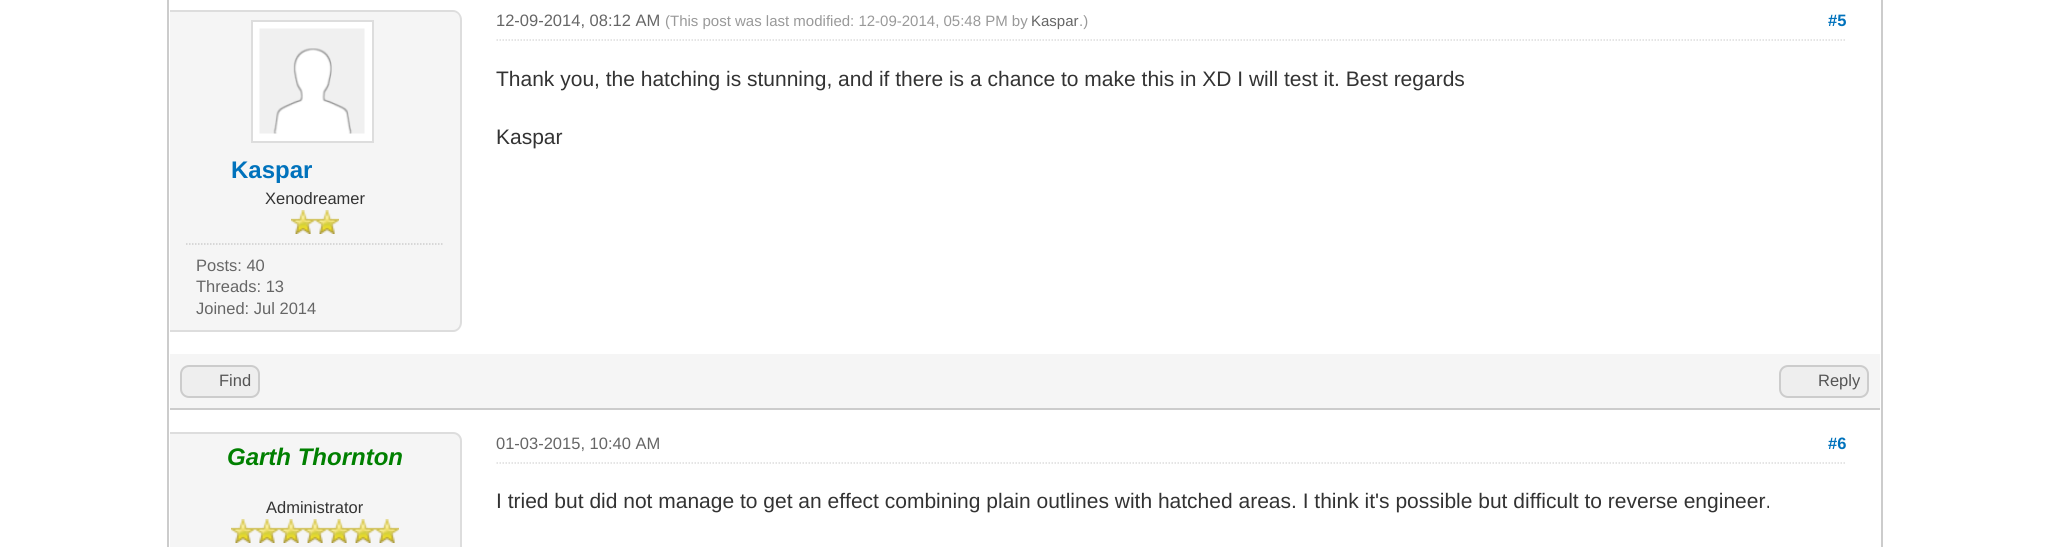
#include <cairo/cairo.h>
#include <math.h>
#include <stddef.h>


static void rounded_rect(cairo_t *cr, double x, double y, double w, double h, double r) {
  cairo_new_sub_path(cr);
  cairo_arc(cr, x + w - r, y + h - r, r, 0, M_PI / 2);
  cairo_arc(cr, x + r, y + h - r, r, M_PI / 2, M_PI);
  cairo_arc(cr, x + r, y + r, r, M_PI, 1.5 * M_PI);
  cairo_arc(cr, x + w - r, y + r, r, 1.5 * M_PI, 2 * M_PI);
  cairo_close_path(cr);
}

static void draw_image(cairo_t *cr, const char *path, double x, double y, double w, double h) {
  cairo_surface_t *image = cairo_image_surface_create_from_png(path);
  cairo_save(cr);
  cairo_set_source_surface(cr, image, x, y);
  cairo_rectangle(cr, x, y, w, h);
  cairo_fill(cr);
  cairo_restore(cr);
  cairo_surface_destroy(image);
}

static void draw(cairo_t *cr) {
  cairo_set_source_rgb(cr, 1, 1, 1);
  cairo_paint(cr);
  cairo_rectangle(cr, 168, -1, 1714, 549);
  cairo_set_source_rgb(cr, 204 / 255.0, 204 / 255.0, 204 / 255.0);
  cairo_stroke(cr);
  cairo_new_path(cr);
  cairo_move_to(cr, 496.5, 40);
  cairo_line_to(cr, 1846.5, 40);
  cairo_set_source_rgb(cr, 221 / 255.0, 221 / 255.0, 221 / 255.0);
  cairo_set_line_width(cr, 1.5);
  cairo_set_dash(cr, (double[]){1.5, 1.5}, 2, 0);
  cairo_stroke(cr);
  cairo_set_source_rgb(cr, 245 / 255.0, 245 / 255.0, 245 / 255.0);
  cairo_new_path(cr);
  cairo_move_to(cr, 170, 11);
  cairo_line_to(cr, 453, 11);
  cairo_curve_to(cr, 458, 11, 462, 15, 462, 20);
  cairo_line_to(cr, 462, 323);
  cairo_curve_to(cr, 462, 328, 458, 332, 453, 332);
  cairo_line_to(cr, 170, 332);
  cairo_close_path(cr);
  cairo_fill(cr);
  cairo_set_source_rgb(cr, 221 / 255.0, 221 / 255.0, 221 / 255.0);
  cairo_set_fill_rule(cr, CAIRO_FILL_RULE_EVEN_ODD);
  cairo_new_path(cr);
  cairo_move_to(cr, 170, 10);
  cairo_line_to(cr, 453, 10);
  cairo_curve_to(cr, 458, 10, 462, 15, 462, 20);
  cairo_line_to(cr, 462, 322);
  cairo_curve_to(cr, 462, 327, 458, 332, 453, 332);
  cairo_line_to(cr, 170, 332);
  cairo_close_path(cr);
  cairo_move_to(cr, 170, 12);
  cairo_line_to(cr, 453, 12);
  cairo_curve_to(cr, 457, 12, 460, 15, 460, 20);
  cairo_line_to(cr, 460, 322);
  cairo_curve_to(cr, 460, 327, 457, 330, 453, 330);
  cairo_line_to(cr, 170, 330);
  cairo_close_path(cr);
  cairo_fill(cr);
  cairo_set_source_rgb(cr, 1, 1, 1);
  cairo_rectangle(cr, 252, 21, 121, 121);
  cairo_fill_preserve(cr);
  cairo_set_source_rgb(cr, 221 / 255.0, 221 / 255.0, 221 / 255.0);
  cairo_set_line_width(cr, 2);
  cairo_set_dash(cr, NULL, 0, 0);
  cairo_stroke(cr);
  draw_image(cr, "images/1.png", 259, 28, 106, 106);
  draw_image(cr, "images/2.png", 291, 210, 24, 24);
  draw_image(cr, "images/2.png", 315, 210, 24, 24);
  cairo_new_path(cr);
  cairo_move_to(cr, 186, 244);
  cairo_line_to(cr, 442.5, 244);
  cairo_set_source_rgb(cr, 204 / 255.0, 204 / 255.0, 204 / 255.0);
  cairo_set_line_width(cr, 1.5);
  cairo_set_dash(cr, (double[]){1.5, 1.5}, 2, 0);
  cairo_stroke(cr);
  cairo_set_source_rgb(cr, 245 / 255.0, 245 / 255.0, 245 / 255.0);
  cairo_rectangle(cr, 170, 354, 1710, 54);
  cairo_fill(cr);
  cairo_set_source_rgb(cr, 204 / 255.0, 204 / 255.0, 204 / 255.0);
  cairo_rectangle(cr, 170, 408, 1710, 2);
  cairo_fill(cr);
  cairo_set_source_rgb(cr, 238 / 255.0, 238 / 255.0, 238 / 255.0);
  rounded_rect(cr, 181, 366, 78, 31, 8);
  cairo_fill_preserve(cr);
  cairo_set_source_rgb(cr, 204 / 255.0, 204 / 255.0, 204 / 255.0);
  cairo_set_line_width(cr, 2);
  cairo_set_dash(cr, NULL, 0, 0);
  cairo_stroke(cr);
  cairo_set_source_rgb(cr, 238 / 255.0, 238 / 255.0, 238 / 255.0);
  rounded_rect(cr, 1780, 366, 88, 31, 8);
  cairo_fill_preserve(cr);
  cairo_set_source_rgb(cr, 204 / 255.0, 204 / 255.0, 204 / 255.0);
  cairo_stroke(cr);
  cairo_set_source_rgb(cr, 245 / 255.0, 245 / 255.0, 245 / 255.0);
  cairo_new_path(cr);
  cairo_move_to(cr, 170, 432);
  cairo_line_to(cr, 453, 432);
  cairo_curve_to(cr, 458, 432, 462, 436, 462, 441);
  cairo_line_to(cr, 462, 547);
  cairo_curve_to(cr, 462, 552, 458, 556, 453, 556);
  cairo_line_to(cr, 170, 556);
  cairo_close_path(cr);
  cairo_fill(cr);
  cairo_set_source_rgb(cr, 221 / 255.0, 221 / 255.0, 221 / 255.0);
  cairo_new_path(cr);
  cairo_move_to(cr, 170, 432);
  cairo_line_to(cr, 453, 432);
  cairo_curve_to(cr, 458, 432, 462, 436, 462, 441);
  cairo_line_to(cr, 462, 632);
  cairo_curve_to(cr, 462, 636, 458, 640, 453, 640);
  cairo_line_to(cr, 170, 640);
  cairo_close_path(cr);
  cairo_move_to(cr, 170, 434);
  cairo_line_to(cr, 453, 434);
  cairo_curve_to(cr, 457, 434, 460, 437, 460, 441);
  cairo_line_to(cr, 460, 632);
  cairo_curve_to(cr, 460, 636, 457, 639, 453, 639);
  cairo_line_to(cr, 170, 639);
  cairo_close_path(cr);
  cairo_fill(cr);
  draw_image(cr, "images/3.png", 231, 519, 24, 24);
  draw_image(cr, "images/3.png", 255, 519, 24, 24);
  draw_image(cr, "images/2.png", 279, 519, 24, 24);
  draw_image(cr, "images/2.png", 303, 519, 24, 24);
  draw_image(cr, "images/2.png", 327, 519, 24, 24);
  draw_image(cr, "images/2.png", 351, 519, 24, 24);
  draw_image(cr, "images/2.png", 375, 519, 24, 24);
  cairo_new_path(cr);
  cairo_move_to(cr, 496.5, 463);
  cairo_line_to(cr, 1846.5, 463);
  cairo_set_line_width(cr, 1.5);
  cairo_set_dash(cr, (double[]){1.5, 1.5}, 2, 0);
  cairo_stroke(cr);
  cairo_select_font_face(cr, "Liberation Sans", CAIRO_FONT_SLANT_NORMAL, CAIRO_FONT_WEIGHT_NORMAL);
  cairo_set_font_size(cr, 16.5);
  cairo_set_source_rgb(cr, 102 / 255.0, 102 / 255.0, 102 / 255.0);
  cairo_move_to(cr, 496, 26);
  cairo_show_text(cr, "12-09-2014, 08:12 AM");
  cairo_set_font_size(cr, 15);
  cairo_set_source_rgb(cr, 153 / 255.0, 153 / 255.0, 153 / 255.0);
  cairo_move_to(cr, 665, 26);
  cairo_show_text(cr, "(This post was last modified: 12-09-2014, 05:48 PM by");
  cairo_set_source_rgb(cr, 102 / 255.0, 102 / 255.0, 102 / 255.0);
  cairo_move_to(cr, 1031, 26);
  cairo_show_text(cr, "Kaspar");
  cairo_set_source_rgb(cr, 153 / 255.0, 153 / 255.0, 153 / 255.0);
  cairo_move_to(cr, 1079, 26);
  cairo_show_text(cr, ".)");
  cairo_select_font_face(cr, "Liberation Sans", CAIRO_FONT_SLANT_NORMAL, CAIRO_FONT_WEIGHT_BOLD);
  cairo_set_font_size(cr, 16.5);
  cairo_set_source_rgb(cr, 0, 114 / 255.0, 188 / 255.0);
  cairo_move_to(cr, 1828, 26);
  cairo_show_text(cr, "#5");
  cairo_select_font_face(cr, "Liberation Sans", CAIRO_FONT_SLANT_NORMAL, CAIRO_FONT_WEIGHT_NORMAL);
  cairo_set_font_size(cr, 21);
  cairo_set_source_rgb(cr, 51 / 255.0, 51 / 255.0, 51 / 255.0);
  cairo_move_to(cr, 496, 86);
  cairo_show_text(cr, "Thank you, the hatching is stunning, and if there is a chance to make this in XD I will test it. Best regards");
  cairo_move_to(cr, 496, 144);
  cairo_show_text(cr, "Kaspar");
  cairo_select_font_face(cr, "Liberation Sans", CAIRO_FONT_SLANT_NORMAL, CAIRO_FONT_WEIGHT_BOLD);
  cairo_set_font_size(cr, 24);
  cairo_set_source_rgb(cr, 0, 114 / 255.0, 188 / 255.0);
  cairo_move_to(cr, 231, 178);
  cairo_show_text(cr, "Kaspar");
  cairo_select_font_face(cr, "Liberation Sans", CAIRO_FONT_SLANT_NORMAL, CAIRO_FONT_WEIGHT_NORMAL);
  cairo_set_font_size(cr, 16.5);
  cairo_set_source_rgb(cr, 51 / 255.0, 51 / 255.0, 51 / 255.0);
  cairo_move_to(cr, 265, 204);
  cairo_show_text(cr, "Xenodreamer");
  cairo_set_source_rgb(cr, 102 / 255.0, 102 / 255.0, 102 / 255.0);
  cairo_move_to(cr, 196, 271);
  cairo_show_text(cr, "Posts: 40");
  cairo_move_to(cr, 196, 292);
  cairo_show_text(cr, "Threads: 13");
  cairo_move_to(cr, 196, 314);
  cairo_show_text(cr, "Joined: Jul 2014");
  cairo_set_source_rgb(cr, 85 / 255.0, 85 / 255.0, 85 / 255.0);
  cairo_move_to(cr, 219, 386);
  cairo_show_text(cr, "Find");
  cairo_move_to(cr, 1818, 386);
  cairo_show_text(cr, "Reply");
  cairo_select_font_face(cr, "Liberation Sans", CAIRO_FONT_SLANT_ITALIC, CAIRO_FONT_WEIGHT_BOLD);
  cairo_set_font_size(cr, 24);
  cairo_set_source_rgb(cr, 0, 128 / 255.0, 0);
  cairo_move_to(cr, 227, 465);
  cairo_show_text(cr, "Garth Thornton");
  cairo_select_font_face(cr, "Liberation Sans", CAIRO_FONT_SLANT_NORMAL, CAIRO_FONT_WEIGHT_NORMAL);
  cairo_set_font_size(cr, 16.5);
  cairo_set_source_rgb(cr, 51 / 255.0, 51 / 255.0, 51 / 255.0);
  cairo_move_to(cr, 266, 513);
  cairo_show_text(cr, "Administrator");
  cairo_set_source_rgb(cr, 102 / 255.0, 102 / 255.0, 102 / 255.0);
  cairo_move_to(cr, 496, 449);
  cairo_show_text(cr, "01-03-2015, 10:40 AM");
  cairo_select_font_face(cr, "Liberation Sans", CAIRO_FONT_SLANT_NORMAL, CAIRO_FONT_WEIGHT_BOLD);
  cairo_set_source_rgb(cr, 0, 114 / 255.0, 188 / 255.0);
  cairo_move_to(cr, 1828, 449);
  cairo_show_text(cr, "#6");
  cairo_select_font_face(cr, "Liberation Sans", CAIRO_FONT_SLANT_NORMAL, CAIRO_FONT_WEIGHT_NORMAL);
  cairo_set_font_size(cr, 21);
  cairo_set_source_rgb(cr, 51 / 255.0, 51 / 255.0, 51 / 255.0);
  cairo_move_to(cr, 496, 508);
  cairo_show_text(cr, "I tried but did not manage to get an effect combining plain outlines with hatched areas. I think it's possible but difficult to reverse engineer.");
}

int main(void) {
  cairo_surface_t *surface = cairo_image_surface_create(CAIRO_FORMAT_RGB24, 2049, 547);
  cairo_t *cr = cairo_create(surface);
  cairo_font_options_t *options = cairo_font_options_create();
  cairo_font_options_set_hint_metrics(options, CAIRO_HINT_METRICS_OFF);
  cairo_font_options_set_hint_style(options, CAIRO_HINT_STYLE_NONE);
  cairo_set_font_options(cr, options);
  cairo_set_miter_limit(cr, 4);
  draw(cr);
  cairo_surface_write_to_png(surface, "out.png");
  cairo_font_options_destroy(options);
  cairo_destroy(cr);
  cairo_surface_destroy(surface);
  return 0;
}
